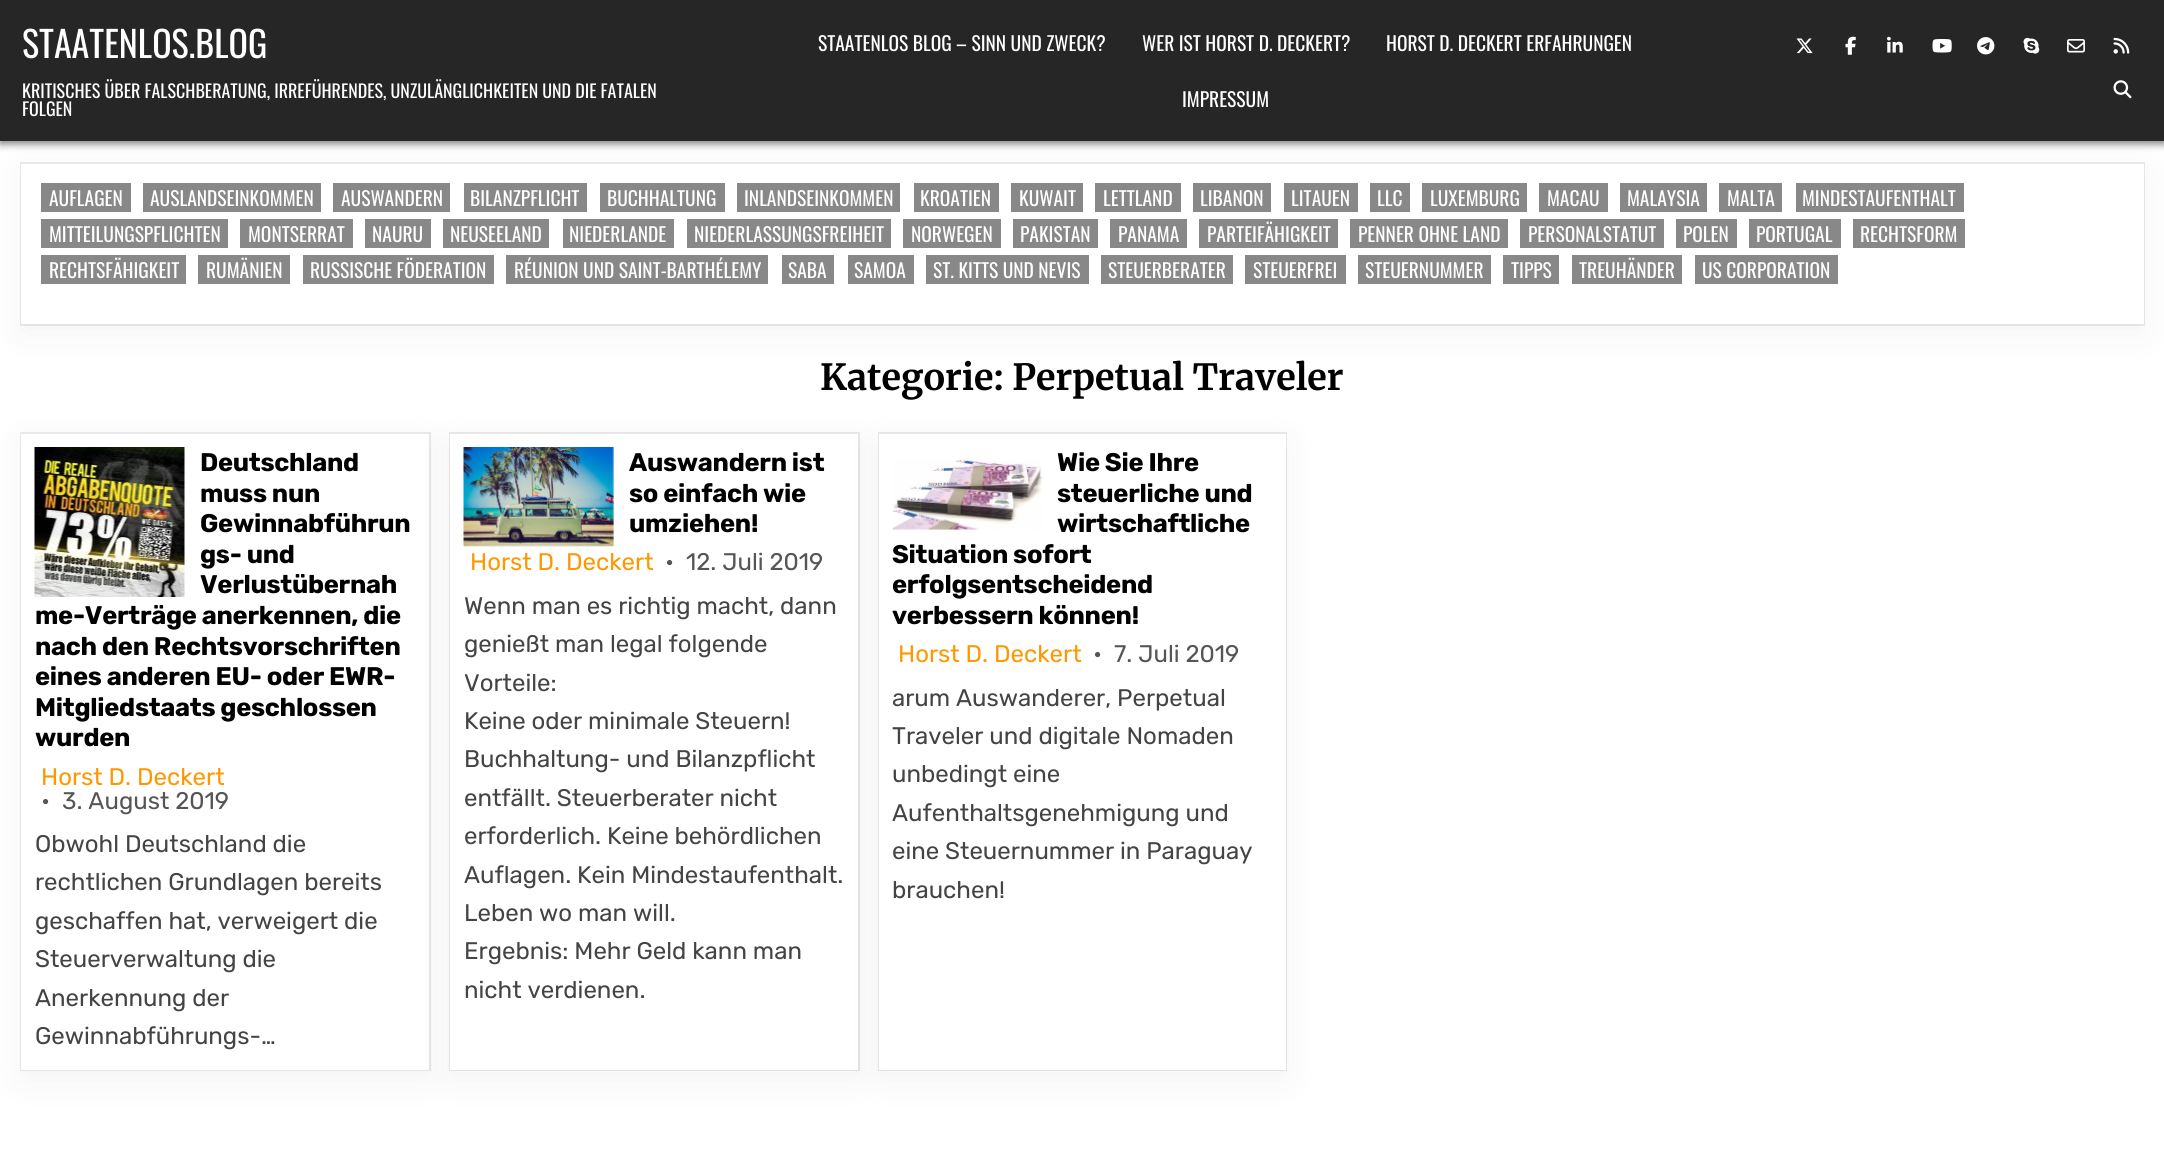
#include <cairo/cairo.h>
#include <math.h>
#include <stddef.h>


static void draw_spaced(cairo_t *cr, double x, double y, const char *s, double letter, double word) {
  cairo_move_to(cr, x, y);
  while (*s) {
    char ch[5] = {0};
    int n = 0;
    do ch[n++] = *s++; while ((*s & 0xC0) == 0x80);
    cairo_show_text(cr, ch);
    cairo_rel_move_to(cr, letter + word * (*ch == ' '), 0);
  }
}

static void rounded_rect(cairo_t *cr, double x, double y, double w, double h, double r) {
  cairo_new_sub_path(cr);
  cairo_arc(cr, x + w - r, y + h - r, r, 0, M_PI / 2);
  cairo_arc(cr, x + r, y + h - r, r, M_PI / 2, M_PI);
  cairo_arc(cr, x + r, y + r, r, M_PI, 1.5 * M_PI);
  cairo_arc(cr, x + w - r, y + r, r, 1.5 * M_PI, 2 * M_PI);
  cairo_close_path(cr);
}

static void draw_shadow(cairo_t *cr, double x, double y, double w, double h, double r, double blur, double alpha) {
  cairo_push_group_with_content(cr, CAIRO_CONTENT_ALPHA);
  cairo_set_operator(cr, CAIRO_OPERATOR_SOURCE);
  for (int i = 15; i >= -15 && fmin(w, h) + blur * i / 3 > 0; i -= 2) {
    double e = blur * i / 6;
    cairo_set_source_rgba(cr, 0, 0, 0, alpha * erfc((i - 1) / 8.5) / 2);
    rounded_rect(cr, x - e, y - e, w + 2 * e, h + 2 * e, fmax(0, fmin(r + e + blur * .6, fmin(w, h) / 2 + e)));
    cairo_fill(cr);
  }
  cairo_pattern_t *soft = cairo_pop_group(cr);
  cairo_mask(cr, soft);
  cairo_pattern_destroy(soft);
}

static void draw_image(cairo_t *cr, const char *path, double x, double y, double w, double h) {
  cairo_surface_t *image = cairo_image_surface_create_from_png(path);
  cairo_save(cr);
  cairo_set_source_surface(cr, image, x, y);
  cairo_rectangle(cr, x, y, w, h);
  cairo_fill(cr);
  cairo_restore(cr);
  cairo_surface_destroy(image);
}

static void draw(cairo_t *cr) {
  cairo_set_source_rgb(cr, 1, 1, 1);
  cairo_paint(cr);
  cairo_set_source_rgb(cr, 0, 0, 0);
  draw_shadow(cr, 0, 3, 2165, 141, 0, 4, 0.5);
  cairo_rectangle(cr, 21, 163, 2123, 162);
  cairo_set_source_rgb(cr, 235 / 255.0, 235 / 255.0, 235 / 255.0);
  cairo_stroke(cr);
  cairo_set_source_rgb(cr, 0, 0, 0);
  draw_shadow(cr, 21, 173, 2123, 160, 0, 18, 0.05);
  cairo_set_source_rgb(cr, 38 / 255.0, 38 / 255.0, 38 / 255.0);
  cairo_rectangle(cr, 0, 0, 2164, 141);
  cairo_fill(cr);
  draw_image(cr, "images/1.png", 1796, 38, 17, 16);
  draw_image(cr, "images/2.png", 1845, 36, 11, 19);
  draw_image(cr, "images/3.png", 1887, 36, 16, 17);
  draw_image(cr, "images/4.png", 1932, 39, 20, 14);
  draw_image(cr, "images/5.png", 1977, 37, 18, 18);
  draw_image(cr, "images/6.png", 2023, 37, 17, 17);
  draw_image(cr, "images/7.png", 2067, 39, 18, 14);
  draw_image(cr, "images/8.png", 2113, 37, 17, 17);
  draw_image(cr, "images/9.png", 2113, 80, 19, 19);
  cairo_set_source_rgb(cr, 1, 1, 1);
  cairo_rectangle(cr, 21, 164, 2123, 160);
  cairo_fill(cr);
  cairo_set_source_rgb(cr, 136 / 255.0, 136 / 255.0, 136 / 255.0);
  cairo_rectangle(cr, 41, 183, 90, 29);
  cairo_fill(cr);
  cairo_rectangle(cr, 143, 183, 178, 29);
  cairo_fill(cr);
  cairo_rectangle(cr, 333, 183, 117, 29);
  cairo_fill(cr);
  cairo_rectangle(cr, 464, 183, 123, 29);
  cairo_fill(cr);
  cairo_rectangle(cr, 600, 183, 125, 29);
  cairo_fill(cr);
  cairo_rectangle(cr, 737, 183, 163, 29);
  cairo_fill(cr);
  cairo_rectangle(cr, 914, 183, 85, 29);
  cairo_fill(cr);
  cairo_rectangle(cr, 1011, 183, 72, 29);
  cairo_fill(cr);
  cairo_rectangle(cr, 1095, 183, 86, 29);
  cairo_fill(cr);
  cairo_rectangle(cr, 1193, 183, 78, 29);
  cairo_fill(cr);
  cairo_rectangle(cr, 1284, 183, 74, 29);
  cairo_fill(cr);
  cairo_rectangle(cr, 1370, 183, 40, 29);
  cairo_fill(cr);
  cairo_rectangle(cr, 1422, 183, 105, 29);
  cairo_fill(cr);
  cairo_rectangle(cr, 1539, 183, 69, 29);
  cairo_fill(cr);
  cairo_rectangle(cr, 1620, 183, 87, 29);
  cairo_fill(cr);
  cairo_rectangle(cr, 1719, 183, 63, 29);
  cairo_fill(cr);
  cairo_rectangle(cr, 1796, 183, 168, 29);
  cairo_fill(cr);
  cairo_rectangle(cr, 41, 219, 187, 29);
  cairo_fill(cr);
  cairo_rectangle(cr, 240, 219, 113, 29);
  cairo_fill(cr);
  cairo_rectangle(cr, 365, 219, 66, 29);
  cairo_fill(cr);
  cairo_rectangle(cr, 443, 219, 106, 29);
  cairo_fill(cr);
  cairo_rectangle(cr, 563, 219, 111, 29);
  cairo_fill(cr);
  cairo_rectangle(cr, 687, 219, 204, 29);
  cairo_fill(cr);
  cairo_rectangle(cr, 903, 219, 98, 29);
  cairo_fill(cr);
  cairo_rectangle(cr, 1013, 219, 85, 29);
  cairo_fill(cr);
  cairo_rectangle(cr, 1110, 219, 77, 29);
  cairo_fill(cr);
  cairo_rectangle(cr, 1199, 219, 139, 29);
  cairo_fill(cr);
  cairo_rectangle(cr, 1350, 219, 158, 29);
  cairo_fill(cr);
  cairo_rectangle(cr, 1520, 219, 144, 29);
  cairo_fill(cr);
  cairo_rectangle(cr, 1676, 219, 61, 29);
  cairo_fill(cr);
  cairo_rectangle(cr, 1749, 219, 92, 29);
  cairo_fill(cr);
  cairo_rectangle(cr, 1853, 219, 112, 29);
  cairo_fill(cr);
  cairo_rectangle(cr, 41, 255, 145, 29);
  cairo_fill(cr);
  cairo_rectangle(cr, 198, 255, 92, 29);
  cairo_fill(cr);
  cairo_rectangle(cr, 303, 255, 191, 29);
  cairo_fill(cr);
  cairo_rectangle(cr, 506, 255, 262, 29);
  cairo_fill(cr);
  cairo_rectangle(cr, 782, 255, 52, 29);
  cairo_fill(cr);
  cairo_rectangle(cr, 848, 255, 66, 29);
  cairo_fill(cr);
  cairo_rectangle(cr, 926, 255, 163, 29);
  cairo_fill(cr);
  cairo_rectangle(cr, 1101, 255, 132, 29);
  cairo_fill(cr);
  cairo_rectangle(cr, 1245, 255, 101, 29);
  cairo_fill(cr);
  cairo_rectangle(cr, 1358, 255, 133, 29);
  cairo_fill(cr);
  cairo_rectangle(cr, 1503, 255, 56, 29);
  cairo_fill(cr);
  cairo_rectangle(cr, 1572, 255, 110, 29);
  cairo_fill(cr);
  cairo_rectangle(cr, 1695, 255, 143, 29);
  cairo_fill(cr);
  cairo_rectangle(cr, 21, 433, 409, 637);
  cairo_set_source_rgb(cr, 235 / 255.0, 235 / 255.0, 235 / 255.0);
  cairo_stroke(cr);
  cairo_set_source_rgb(cr, 0, 0, 0);
  draw_shadow(cr, 21, 443, 408, 636, 0, 18, 0.05);
  cairo_set_source_rgb(cr, 1, 1, 1);
  cairo_rectangle(cr, 21, 434, 408, 636);
  cairo_fill(cr);
  draw_image(cr, "images/10.png", 34, 447, 151, 150);
  cairo_rectangle(cr, 450, 433, 409, 637);
  cairo_set_source_rgb(cr, 234 / 255.0, 234 / 255.0, 234 / 255.0);
  cairo_stroke(cr);
  cairo_set_source_rgb(cr, 0, 0, 0);
  draw_shadow(cr, 450, 443, 408, 636, 0, 18, 0.05);
  cairo_set_source_rgb(cr, 1, 1, 1);
  cairo_rectangle(cr, 450, 434, 408, 636);
  cairo_fill(cr);
  draw_image(cr, "images/11.png", 463, 447, 151, 100);
  cairo_rectangle(cr, 879, 433, 407, 637);
  cairo_set_source_rgb(cr, 234 / 255.0, 234 / 255.0, 234 / 255.0);
  cairo_stroke(cr);
  cairo_set_source_rgb(cr, 0, 0, 0);
  draw_shadow(cr, 879, 443, 407, 636, 0, 18, 0.05);
  cairo_set_source_rgb(cr, 1, 1, 1);
  cairo_rectangle(cr, 879, 434, 407, 636);
  cairo_fill(cr);
  draw_image(cr, "images/12.png", 892, 459, 151, 71);
  cairo_select_font_face(cr, "Oswald", CAIRO_FONT_SLANT_NORMAL, CAIRO_FONT_WEIGHT_NORMAL);
  cairo_set_font_size(cr, 36);
  cairo_move_to(cr, 22, 58);
  cairo_show_text(cr, "STAATENLOS.BLOG");
  cairo_set_font_size(cr, 18);
  cairo_move_to(cr, 22, 98);
  cairo_show_text(cr, "KRITISCHES ÜBER FALSCHBERATUNG, IRREFÜHRENDES, UNZULÄNGLICHKEITEN UND DIE FATALEN");
  cairo_move_to(cr, 22, 116);
  cairo_show_text(cr, "FOLGEN");
  cairo_set_font_size(cr, 19.5);
  cairo_move_to(cr, 818, 51);
  cairo_show_text(cr, "STAATENLOS BLOG – SINN UND ZWECK?");
  cairo_move_to(cr, 1142, 51);
  cairo_show_text(cr, "WER IST HORST D. DECKERT?");
  cairo_move_to(cr, 1386, 51);
  cairo_show_text(cr, "HORST D. DECKERT ERFAHRUNGEN");
  cairo_move_to(cr, 1182, 107);
  cairo_show_text(cr, "IMPRESSUM");
  cairo_move_to(cr, 49, 206);
  cairo_show_text(cr, "AUFLAGEN");
  cairo_move_to(cr, 150, 206);
  cairo_show_text(cr, "AUSLANDSEINKOMMEN");
  cairo_move_to(cr, 341, 206);
  cairo_show_text(cr, "AUSWANDERN");
  cairo_move_to(cr, 470, 206);
  cairo_show_text(cr, "BILANZPFLICHT");
  cairo_move_to(cr, 607, 206);
  cairo_show_text(cr, "BUCHHALTUNG");
  cairo_move_to(cr, 744, 206);
  cairo_show_text(cr, "INLANDSEINKOMMEN");
  cairo_move_to(cr, 920, 206);
  cairo_show_text(cr, "KROATIEN");
  cairo_move_to(cr, 1019, 206);
  cairo_show_text(cr, "KUWAIT");
  cairo_move_to(cr, 1103, 206);
  cairo_show_text(cr, "LETTLAND");
  cairo_move_to(cr, 1200, 206);
  cairo_show_text(cr, "LIBANON");
  cairo_move_to(cr, 1291, 206);
  cairo_show_text(cr, "LITAUEN");
  cairo_move_to(cr, 1377, 206);
  cairo_show_text(cr, "LLC");
  cairo_move_to(cr, 1430, 206);
  cairo_show_text(cr, "LUXEMBURG");
  cairo_move_to(cr, 1547, 206);
  cairo_show_text(cr, "MACAU");
  cairo_move_to(cr, 1627, 206);
  cairo_show_text(cr, "MALAYSIA");
  cairo_move_to(cr, 1727, 206);
  cairo_show_text(cr, "MALTA");
  cairo_move_to(cr, 1802, 206);
  cairo_show_text(cr, "MINDESTAUFENTHALT");
  cairo_move_to(cr, 49, 242);
  cairo_show_text(cr, "MITTEILUNGSPFLICHTEN");
  cairo_move_to(cr, 248, 242);
  cairo_show_text(cr, "MONTSERRAT");
  cairo_move_to(cr, 372, 242);
  cairo_show_text(cr, "NAURU");
  cairo_move_to(cr, 450, 242);
  cairo_show_text(cr, "NEUSEELAND");
  cairo_move_to(cr, 569, 242);
  cairo_show_text(cr, "NIEDERLANDE");
  cairo_move_to(cr, 694, 242);
  cairo_show_text(cr, "NIEDERLASSUNGSFREIHEIT");
  cairo_move_to(cr, 911, 242);
  cairo_show_text(cr, "NORWEGEN");
  cairo_move_to(cr, 1020, 242);
  cairo_show_text(cr, "PAKISTAN");
  cairo_move_to(cr, 1118, 242);
  cairo_show_text(cr, "PANAMA");
  cairo_move_to(cr, 1207, 242);
  cairo_show_text(cr, "PARTEIFÄHIGKEIT");
  cairo_move_to(cr, 1358, 242);
  cairo_show_text(cr, "PENNER OHNE LAND");
  cairo_move_to(cr, 1528, 242);
  cairo_show_text(cr, "PERSONALSTATUT");
  cairo_move_to(cr, 1683, 242);
  cairo_show_text(cr, "POLEN");
  cairo_move_to(cr, 1756, 242);
  cairo_show_text(cr, "PORTUGAL");
  cairo_move_to(cr, 1860, 242);
  cairo_show_text(cr, "RECHTSFORM");
  cairo_move_to(cr, 49, 278);
  cairo_show_text(cr, "RECHTSFÄHIGKEIT");
  cairo_move_to(cr, 206, 278);
  cairo_show_text(cr, "RUMÄNIEN");
  cairo_move_to(cr, 310, 278);
  cairo_show_text(cr, "RUSSISCHE FÖDERATION");
  cairo_move_to(cr, 514, 278);
  cairo_show_text(cr, "RÉUNION UND SAINT-BARTHÉLEMY");
  cairo_move_to(cr, 788, 278);
  cairo_show_text(cr, "SABA");
  cairo_move_to(cr, 854, 278);
  cairo_show_text(cr, "SAMOA");
  cairo_move_to(cr, 933, 278);
  cairo_show_text(cr, "ST. KITTS UND NEVIS");
  cairo_move_to(cr, 1108, 278);
  cairo_show_text(cr, "STEUERBERATER");
  cairo_move_to(cr, 1253, 278);
  cairo_show_text(cr, "STEUERFREI");
  cairo_move_to(cr, 1365, 278);
  cairo_show_text(cr, "STEUERNUMMER");
  cairo_move_to(cr, 1511, 278);
  cairo_show_text(cr, "TIPPS");
  cairo_move_to(cr, 1579, 278);
  cairo_show_text(cr, "TREUHÄNDER");
  cairo_move_to(cr, 1702, 278);
  cairo_show_text(cr, "US CORPORATION");
  cairo_select_font_face(cr, "Merriweather", CAIRO_FONT_SLANT_NORMAL, CAIRO_FONT_WEIGHT_BOLD);
  cairo_set_font_size(cr, 36);
  cairo_set_source_rgb(cr, 0, 0, 0);
  cairo_move_to(cr, 820, 390);
  cairo_show_text(cr, "Kategorie: Perpetual Traveler");
  cairo_select_font_face(cr, "Rubik", CAIRO_FONT_SLANT_NORMAL, CAIRO_FONT_WEIGHT_BOLD);
  cairo_set_font_size(cr, 25.5);
  draw_spaced(cr, 200, 471, "Deutschland", -0.3, 0);
  draw_spaced(cr, 200, 502, "muss nun", -0.3, 0);
  draw_spaced(cr, 200, 532, "Gewinnabführun", -0.3, 0);
  draw_spaced(cr, 200, 563, "gs- und", -0.3, 0);
  draw_spaced(cr, 200, 593, "Verlustübernah", -0.3, 0);
  draw_spaced(cr, 35, 624, "me-Verträge anerkennen, die", -0.3, 0);
  draw_spaced(cr, 35, 655, "nach den Rechtsvorschriften", -0.3, 0);
  draw_spaced(cr, 35, 685, "eines anderen EU- oder EWR-", -0.3, 0);
  draw_spaced(cr, 35, 716, "Mitgliedstaats geschlossen", -0.3, 0);
  draw_spaced(cr, 35, 746, "wurden", -0.3, 0);
  cairo_select_font_face(cr, "Rubik", CAIRO_FONT_SLANT_NORMAL, CAIRO_FONT_WEIGHT_NORMAL);
  cairo_set_font_size(cr, 24);
  cairo_set_source_rgb(cr, 1, 152 / 255.0, 0);
  cairo_move_to(cr, 41, 785);
  cairo_show_text(cr, "Horst D. Deckert");
  cairo_set_source_rgb(cr, 85 / 255.0, 85 / 255.0, 85 / 255.0);
  cairo_move_to(cr, 41, 809);
  cairo_show_text(cr, "•");
  cairo_move_to(cr, 62, 809);
  cairo_show_text(cr, "3. August 2019");
  cairo_set_source_rgb(cr, 68 / 255.0, 68 / 255.0, 68 / 255.0);
  cairo_move_to(cr, 35, 852);
  cairo_show_text(cr, "Obwohl Deutschland die");
  cairo_move_to(cr, 35, 890);
  cairo_show_text(cr, "rechtlichen Grundlagen bereits");
  cairo_move_to(cr, 35, 929);
  cairo_show_text(cr, "geschaffen hat, verweigert die");
  cairo_move_to(cr, 35, 967);
  cairo_show_text(cr, "Steuerverwaltung die");
  cairo_move_to(cr, 35, 1006);
  cairo_show_text(cr, "Anerkennung der");
  cairo_move_to(cr, 35, 1044);
  cairo_show_text(cr, "Gewinnabführungs-…");
  cairo_select_font_face(cr, "Rubik", CAIRO_FONT_SLANT_NORMAL, CAIRO_FONT_WEIGHT_BOLD);
  cairo_set_font_size(cr, 25.5);
  cairo_set_source_rgb(cr, 0, 0, 0);
  draw_spaced(cr, 629, 471, "Auswandern ist", -0.3, 0);
  draw_spaced(cr, 629, 502, "so einfach wie", -0.3, 0);
  draw_spaced(cr, 629, 532, "umziehen!", -0.3, 0);
  cairo_select_font_face(cr, "Rubik", CAIRO_FONT_SLANT_NORMAL, CAIRO_FONT_WEIGHT_NORMAL);
  cairo_set_font_size(cr, 24);
  cairo_set_source_rgb(cr, 1, 152 / 255.0, 0);
  cairo_move_to(cr, 470, 570);
  cairo_show_text(cr, "Horst D. Deckert");
  cairo_set_source_rgb(cr, 85 / 255.0, 85 / 255.0, 85 / 255.0);
  cairo_move_to(cr, 665, 570);
  cairo_show_text(cr, "•");
  cairo_move_to(cr, 686, 570);
  cairo_show_text(cr, "12. Juli 2019");
  cairo_set_source_rgb(cr, 68 / 255.0, 68 / 255.0, 68 / 255.0);
  cairo_move_to(cr, 464, 614);
  cairo_show_text(cr, "Wenn man es richtig macht, dann");
  cairo_move_to(cr, 464, 652);
  cairo_show_text(cr, "genießt man legal folgende");
  cairo_move_to(cr, 464, 691);
  cairo_show_text(cr, "Vorteile:");
  cairo_move_to(cr, 464, 729);
  cairo_show_text(cr, "Keine oder minimale Steuern!");
  cairo_move_to(cr, 464, 767);
  cairo_show_text(cr, "Buchhaltung- und Bilanzpflicht");
  cairo_move_to(cr, 464, 806);
  cairo_show_text(cr, "entfällt. Steuerberater nicht");
  cairo_move_to(cr, 464, 844);
  cairo_show_text(cr, "erforderlich. Keine behördlichen");
  cairo_move_to(cr, 464, 883);
  cairo_show_text(cr, "Auflagen. Kein Mindestaufenthalt.");
  cairo_move_to(cr, 464, 921);
  cairo_show_text(cr, "Leben wo man will.");
  cairo_move_to(cr, 464, 959);
  cairo_show_text(cr, "Ergebnis: Mehr Geld kann man");
  cairo_move_to(cr, 464, 998);
  cairo_show_text(cr, "nicht verdienen.");
  cairo_select_font_face(cr, "Rubik", CAIRO_FONT_SLANT_NORMAL, CAIRO_FONT_WEIGHT_BOLD);
  cairo_set_font_size(cr, 25.5);
  cairo_set_source_rgb(cr, 0, 0, 0);
  draw_spaced(cr, 1057, 471, "Wie Sie Ihre", -0.3, 0);
  draw_spaced(cr, 1057, 502, "steuerliche und", -0.3, 0);
  draw_spaced(cr, 1057, 532, "wirtschaftliche", -0.3, 0);
  draw_spaced(cr, 892, 563, "Situation sofort", -0.3, 0);
  draw_spaced(cr, 892, 593, "erfolgsentscheidend", -0.3, 0);
  draw_spaced(cr, 892, 624, "verbessern können!", -0.3, 0);
  cairo_select_font_face(cr, "Rubik", CAIRO_FONT_SLANT_NORMAL, CAIRO_FONT_WEIGHT_NORMAL);
  cairo_set_font_size(cr, 24);
  cairo_set_source_rgb(cr, 1, 152 / 255.0, 0);
  cairo_move_to(cr, 898, 662);
  cairo_show_text(cr, "Horst D. Deckert");
  cairo_set_source_rgb(cr, 85 / 255.0, 85 / 255.0, 85 / 255.0);
  cairo_move_to(cr, 1093, 662);
  cairo_show_text(cr, "•");
  cairo_move_to(cr, 1114, 662);
  cairo_show_text(cr, "7. Juli 2019");
  cairo_set_source_rgb(cr, 68 / 255.0, 68 / 255.0, 68 / 255.0);
  cairo_move_to(cr, 892, 706);
  cairo_show_text(cr, "arum Auswanderer, Perpetual");
  cairo_move_to(cr, 892, 744);
  cairo_show_text(cr, "Traveler und digitale Nomaden");
  cairo_move_to(cr, 892, 782);
  cairo_show_text(cr, "unbedingt eine");
  cairo_move_to(cr, 892, 821);
  cairo_show_text(cr, "Aufenthaltsgenehmigung und");
  cairo_move_to(cr, 892, 859);
  cairo_show_text(cr, "eine Steuernummer in Paraguay");
  cairo_move_to(cr, 892, 898);
  cairo_show_text(cr, "brauchen!");
}

int main(void) {
  cairo_surface_t *surface = cairo_image_surface_create(CAIRO_FORMAT_RGB24, 2164, 1166);
  cairo_t *cr = cairo_create(surface);
  cairo_font_options_t *options = cairo_font_options_create();
  cairo_font_options_set_hint_metrics(options, CAIRO_HINT_METRICS_OFF);
  cairo_font_options_set_hint_style(options, CAIRO_HINT_STYLE_NONE);
  cairo_set_font_options(cr, options);
  cairo_set_miter_limit(cr, 4);
  draw(cr);
  cairo_surface_write_to_png(surface, "out.png");
  cairo_font_options_destroy(options);
  cairo_destroy(cr);
  cairo_surface_destroy(surface);
  return 0;
}
